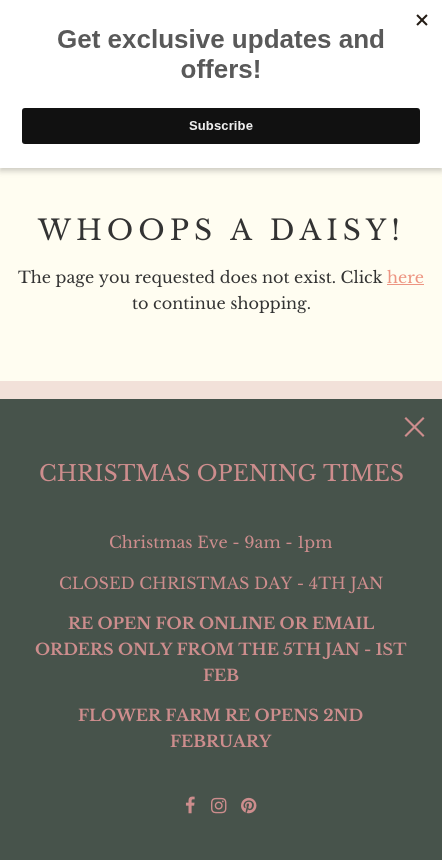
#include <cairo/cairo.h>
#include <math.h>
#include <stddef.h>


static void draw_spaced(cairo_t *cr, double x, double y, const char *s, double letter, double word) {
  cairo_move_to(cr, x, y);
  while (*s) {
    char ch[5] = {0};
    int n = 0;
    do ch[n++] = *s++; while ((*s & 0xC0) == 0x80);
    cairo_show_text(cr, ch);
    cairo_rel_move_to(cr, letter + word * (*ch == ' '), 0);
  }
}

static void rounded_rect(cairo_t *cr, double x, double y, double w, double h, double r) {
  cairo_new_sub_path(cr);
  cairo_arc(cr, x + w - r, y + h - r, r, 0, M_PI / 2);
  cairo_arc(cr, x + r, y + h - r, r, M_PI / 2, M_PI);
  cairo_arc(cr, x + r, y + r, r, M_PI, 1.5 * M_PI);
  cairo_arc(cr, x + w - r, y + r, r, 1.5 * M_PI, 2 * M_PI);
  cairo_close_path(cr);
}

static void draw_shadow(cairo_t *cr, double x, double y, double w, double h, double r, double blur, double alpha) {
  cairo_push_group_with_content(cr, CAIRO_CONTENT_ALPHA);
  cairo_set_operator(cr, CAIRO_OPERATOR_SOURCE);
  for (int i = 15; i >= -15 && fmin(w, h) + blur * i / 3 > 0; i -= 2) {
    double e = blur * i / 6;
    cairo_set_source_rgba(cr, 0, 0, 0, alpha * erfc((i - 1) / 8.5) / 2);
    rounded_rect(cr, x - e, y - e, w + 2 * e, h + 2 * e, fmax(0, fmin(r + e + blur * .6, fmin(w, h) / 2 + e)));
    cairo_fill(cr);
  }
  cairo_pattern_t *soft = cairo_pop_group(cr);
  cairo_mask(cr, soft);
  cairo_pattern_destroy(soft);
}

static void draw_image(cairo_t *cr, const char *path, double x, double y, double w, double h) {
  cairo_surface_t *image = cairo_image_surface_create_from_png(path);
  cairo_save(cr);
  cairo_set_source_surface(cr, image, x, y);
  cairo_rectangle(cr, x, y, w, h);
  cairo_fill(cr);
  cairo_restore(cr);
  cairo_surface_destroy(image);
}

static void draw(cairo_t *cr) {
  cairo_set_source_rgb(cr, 1, 253 / 255.0, 241 / 255.0);
  cairo_paint(cr);
  cairo_set_source_rgb(cr, 0, 0, 0);
  draw_shadow(cr, 0, 3, 442, 168, 0, 3, 0.2);
  cairo_set_source_rgb(cr, 1, 1, 1);
  cairo_rectangle(cr, 0, 0, 442, 168);
  cairo_fill(cr);
  draw_image(cr, "images/1.png", 22, 14, 406, 130);
  cairo_set_source_rgb(cr, 237 / 255.0, 149 / 255.0, 130 / 255.0);
  cairo_rectangle(cr, 387, 284, 37, 1);
  cairo_fill(cr);
  cairo_set_source_rgb(cr, 242 / 255.0, 225 / 255.0, 217 / 255.0);
  cairo_rectangle(cr, 0, 381, 442, 18);
  cairo_fill(cr);
  cairo_set_source_rgb(cr, 71 / 255.0, 83 / 255.0, 75 / 255.0);
  cairo_rectangle(cr, 0, 399, 442, 461);
  cairo_fill(cr);
  cairo_set_source_rgb(cr, 205 / 255.0, 141 / 255.0, 141 / 255.0);
  cairo_new_path(cr);
  cairo_move_to(cr, 423, 417);
  cairo_line_to(cr, 424.5, 418.5);
  cairo_line_to(cr, 406, 437);
  cairo_line_to(cr, 404.5, 435.5);
  cairo_close_path(cr);
  cairo_fill(cr);
  cairo_new_path(cr);
  cairo_move_to(cr, 404.5, 418.5);
  cairo_line_to(cr, 406, 417);
  cairo_line_to(cr, 424.5, 435.5);
  cairo_line_to(cr, 423, 437);
  cairo_close_path(cr);
  cairo_fill(cr);
  draw_image(cr, "images/2.png", 185, 796, 10, 18);
  draw_image(cr, "images/3.png", 211, 797, 16, 17);
  draw_image(cr, "images/4.png", 241, 797, 16, 17);
  cairo_select_font_face(cr, "Libre Baskerville", CAIRO_FONT_SLANT_NORMAL, CAIRO_FONT_WEIGHT_NORMAL);
  cairo_set_font_size(cr, 28);
  cairo_set_source_rgb(cr, 51 / 255.0, 51 / 255.0, 51 / 255.0);
  draw_spaced(cr, 38, 240, "WHOOPS A DAISY!", 5, 0);
  cairo_set_font_size(cr, 16);
  cairo_move_to(cr, 18, 283);
  cairo_show_text(cr, "The page you requested does not exist. Click");
  cairo_set_source_rgb(cr, 237 / 255.0, 149 / 255.0, 130 / 255.0);
  cairo_move_to(cr, 387, 283);
  cairo_show_text(cr, "here");
  cairo_set_source_rgb(cr, 51 / 255.0, 51 / 255.0, 51 / 255.0);
  cairo_move_to(cr, 132, 309);
  cairo_show_text(cr, "to continue shopping.");
  cairo_set_font_size(cr, 22);
  cairo_set_source_rgb(cr, 205 / 255.0, 141 / 255.0, 141 / 255.0);
  cairo_move_to(cr, 39, 481);
  cairo_show_text(cr, "CHRISTMAS OPENING TIMES");
  cairo_set_font_size(cr, 16);
  cairo_move_to(cr, 109, 548);
  cairo_show_text(cr, "Christmas Eve - 9am - 1pm");
  cairo_move_to(cr, 59, 589);
  cairo_show_text(cr, "CLOSED CHRISTMAS DAY - 4TH JAN");
  cairo_select_font_face(cr, "Libre Baskerville", CAIRO_FONT_SLANT_NORMAL, CAIRO_FONT_WEIGHT_BOLD);
  cairo_move_to(cr, 68, 629);
  cairo_show_text(cr, "RE OPEN FOR ONLINE OR EMAIL");
  cairo_move_to(cr, 35, 655);
  cairo_show_text(cr, "ORDERS ONLY FROM THE 5TH JAN - 1ST");
  cairo_move_to(cr, 203, 681);
  cairo_show_text(cr, "FEB");
  cairo_move_to(cr, 78, 721);
  cairo_show_text(cr, "FLOWER FARM RE OPENS 2ND");
  cairo_move_to(cr, 170, 747);
  cairo_show_text(cr, "FEBRUARY");
}

int main(void) {
  cairo_surface_t *surface = cairo_image_surface_create(CAIRO_FORMAT_RGB24, 442, 860);
  cairo_t *cr = cairo_create(surface);
  cairo_font_options_t *options = cairo_font_options_create();
  cairo_font_options_set_hint_metrics(options, CAIRO_HINT_METRICS_OFF);
  cairo_font_options_set_hint_style(options, CAIRO_HINT_STYLE_NONE);
  cairo_set_font_options(cr, options);
  cairo_set_miter_limit(cr, 4);
  draw(cr);
  cairo_surface_write_to_png(surface, "out.png");
  cairo_font_options_destroy(options);
  cairo_destroy(cr);
  cairo_surface_destroy(surface);
  return 0;
}
